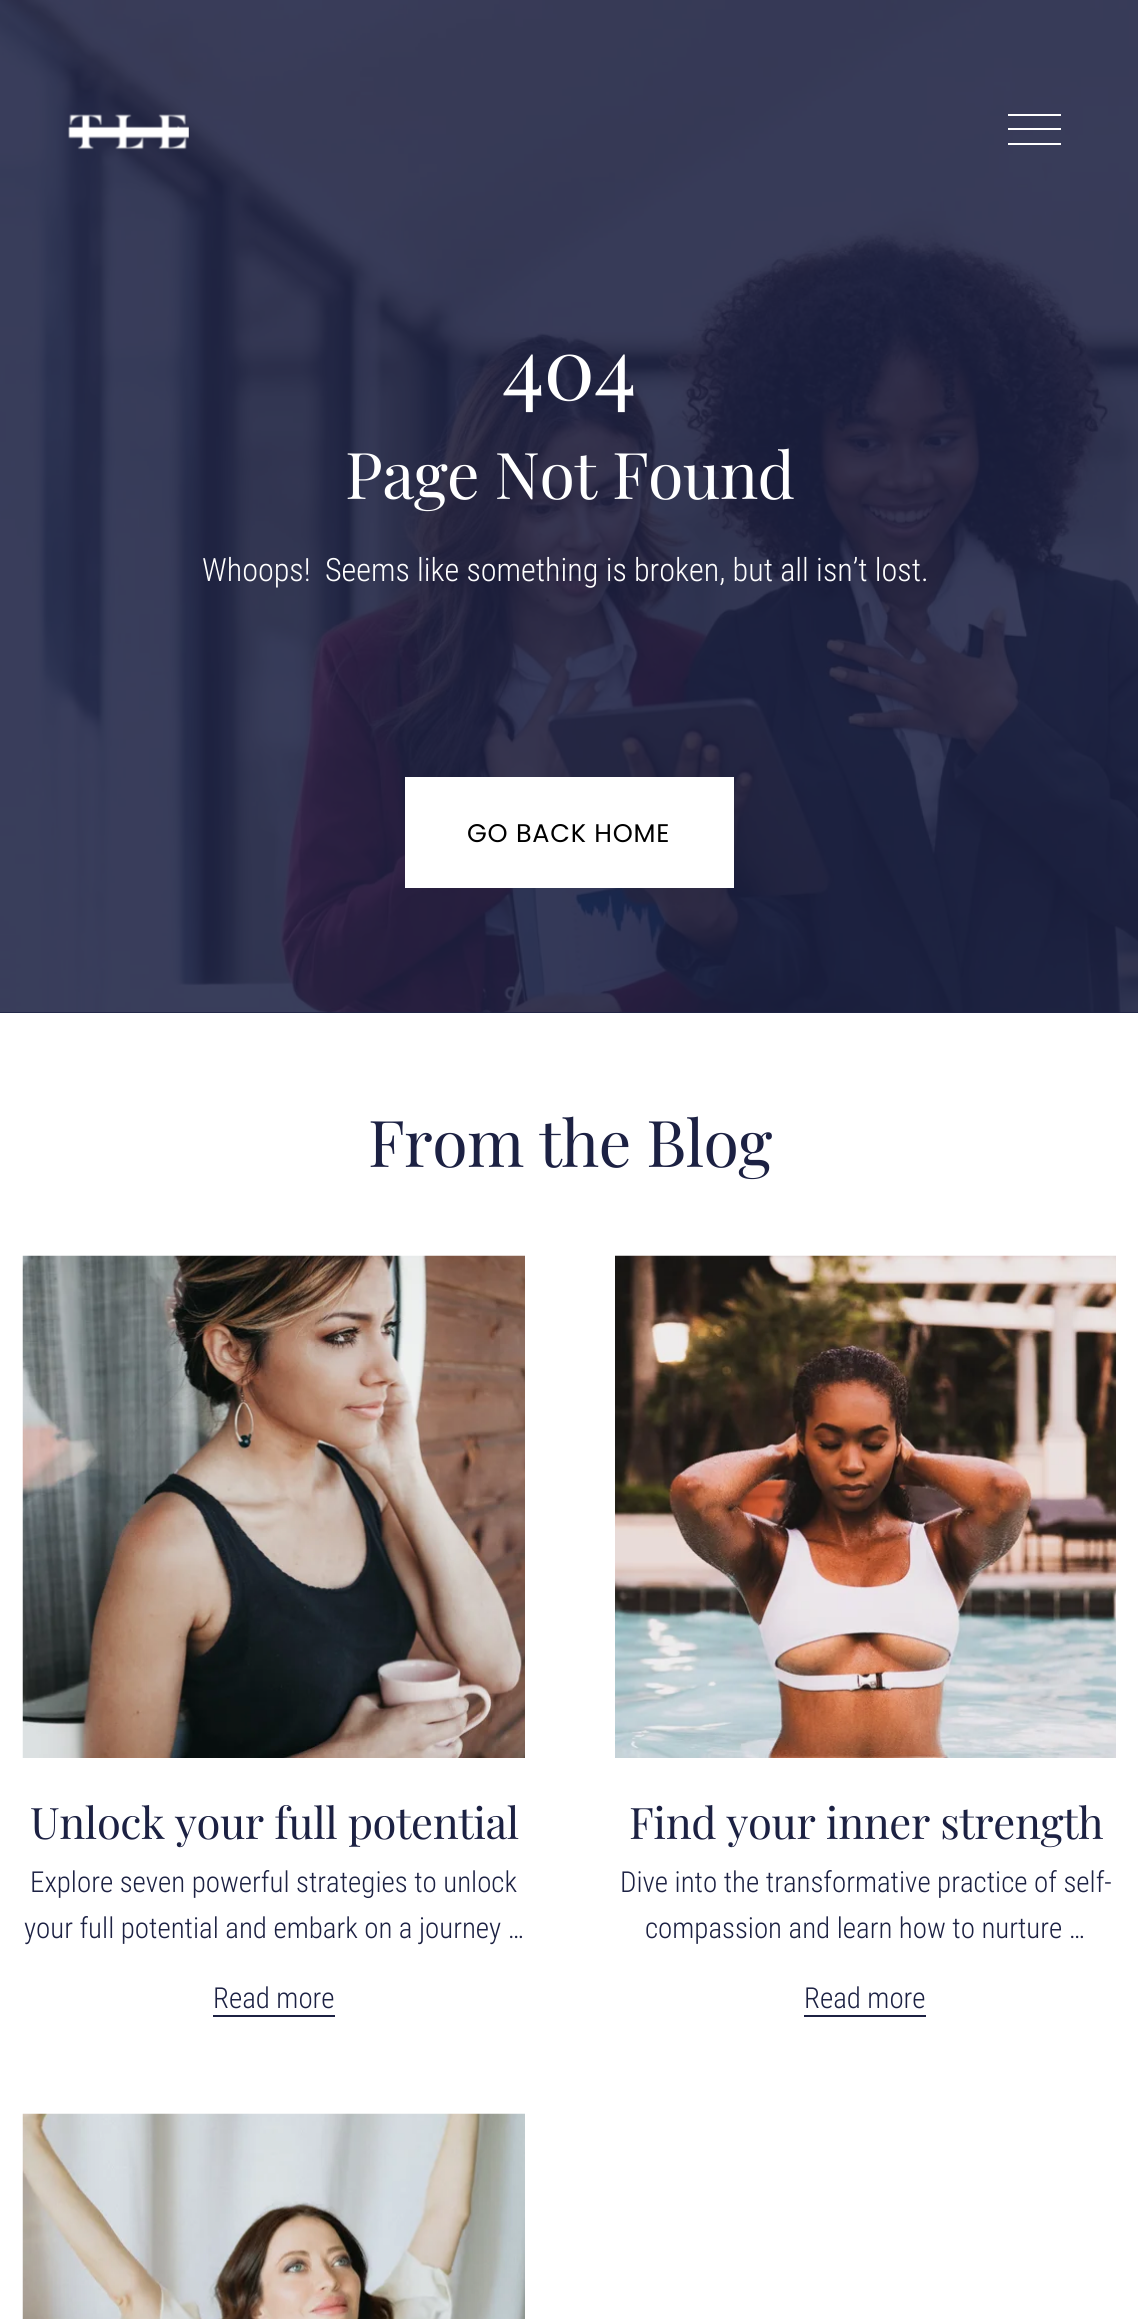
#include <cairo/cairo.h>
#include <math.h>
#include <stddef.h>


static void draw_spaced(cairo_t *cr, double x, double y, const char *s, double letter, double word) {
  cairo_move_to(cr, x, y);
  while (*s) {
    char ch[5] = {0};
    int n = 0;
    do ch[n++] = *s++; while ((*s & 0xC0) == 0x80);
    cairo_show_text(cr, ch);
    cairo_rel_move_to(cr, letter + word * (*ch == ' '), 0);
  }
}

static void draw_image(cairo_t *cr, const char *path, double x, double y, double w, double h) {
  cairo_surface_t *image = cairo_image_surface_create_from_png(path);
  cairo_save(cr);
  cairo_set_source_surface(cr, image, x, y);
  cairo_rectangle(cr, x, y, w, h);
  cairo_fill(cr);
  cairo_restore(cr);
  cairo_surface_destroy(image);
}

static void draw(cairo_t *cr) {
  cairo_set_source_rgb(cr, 1, 1, 1);
  cairo_paint(cr);
  cairo_set_source_rgb(cr, 28 / 255.0, 33 / 255.0, 67 / 255.0);
  cairo_rectangle(cr, 0, 1012, 1138, 1);
  cairo_fill(cr);
  draw_image(cr, "images/2.png", 0, 0, 1138, 1013);
  draw_image(cr, "images/1.png", 68, 114, 121, 36);
  cairo_set_source_rgb(cr, 1, 1, 1);
  cairo_rectangle(cr, 1008, 114, 53, 2);
  cairo_fill(cr);
  cairo_rectangle(cr, 1008, 128, 53, 2);
  cairo_fill(cr);
  cairo_rectangle(cr, 1008, 143, 53, 2);
  cairo_fill(cr);
  cairo_rectangle(cr, 405, 777, 329, 111);
  cairo_fill(cr);
  draw_image(cr, "images/3.png", 22, 1255, 503, 503);
  cairo_set_source_rgb(cr, 28 / 255.0, 33 / 255.0, 67 / 255.0);
  cairo_rectangle(cr, 213, 2015, 122, 2);
  cairo_fill(cr);
  draw_image(cr, "images/4.png", 615, 1255, 501, 503);
  cairo_rectangle(cr, 804, 2015, 122, 2);
  cairo_fill(cr);
  draw_image(cr, "images/5.png", 22, 2113, 503, 206);
  cairo_select_font_face(cr, "Playfair Display", CAIRO_FONT_SLANT_NORMAL, CAIRO_FONT_WEIGHT_NORMAL);
  cairo_set_font_size(cr, 86);
  cairo_set_source_rgb(cr, 1, 1, 1);
  draw_spaced(cr, 502, 400, "404", -1, 0);
  cairo_set_font_size(cr, 64.5);
  draw_spaced(cr, 345, 499, "Page Not Found", -0.6, 0);
  cairo_select_font_face(cr, "Roboto Condensed Light", CAIRO_FONT_SLANT_NORMAL, CAIRO_FONT_WEIGHT_NORMAL);
  cairo_set_font_size(cr, 32.1);
  cairo_move_to(cr, 202, 581);
  cairo_show_text(cr, "Whoops!  Seems like something is broken, but all isn’t lost.");
  cairo_select_font_face(cr, "Poppins", CAIRO_FONT_SLANT_NORMAL, CAIRO_FONT_WEIGHT_NORMAL);
  cairo_set_font_size(cr, 25.5);
  cairo_set_source_rgb(cr, 0, 0, 0);
  draw_spaced(cr, 467, 842, "GO BACK HOME", 0.75, 0);
  cairo_select_font_face(cr, "Playfair Display", CAIRO_FONT_SLANT_NORMAL, CAIRO_FONT_WEIGHT_NORMAL);
  cairo_set_font_size(cr, 64.5);
  cairo_set_source_rgb(cr, 28 / 255.0, 33 / 255.0, 67 / 255.0);
  draw_spaced(cr, 368, 1167, "From the Blog", -0.6, 0);
  cairo_set_font_size(cr, 43.5);
  draw_spaced(cr, 30, 1839, "Unlock your full potential", -0.4, 0);
  cairo_select_font_face(cr, "Roboto Condensed Light", CAIRO_FONT_SLANT_NORMAL, CAIRO_FONT_WEIGHT_NORMAL);
  cairo_set_font_size(cr, 28.9);
  cairo_move_to(cr, 30, 1892);
  cairo_show_text(cr, "Explore seven powerful strategies to unlock");
  cairo_move_to(cr, 24, 1938);
  cairo_show_text(cr, "your full potential and embark on a journey …");
  cairo_move_to(cr, 213, 2008);
  cairo_show_text(cr, "Read more");
  cairo_select_font_face(cr, "Playfair Display", CAIRO_FONT_SLANT_NORMAL, CAIRO_FONT_WEIGHT_NORMAL);
  cairo_set_font_size(cr, 43.5);
  draw_spaced(cr, 629, 1839, "Find your inner strength", -0.4, 0);
  cairo_select_font_face(cr, "Roboto Condensed Light", CAIRO_FONT_SLANT_NORMAL, CAIRO_FONT_WEIGHT_NORMAL);
  cairo_set_font_size(cr, 28.9);
  cairo_move_to(cr, 620, 1892);
  cairo_show_text(cr, "Dive into the transformative practice of self-");
  cairo_move_to(cr, 645, 1938);
  cairo_show_text(cr, "compassion and learn how to nurture …");
  cairo_move_to(cr, 804, 2008);
  cairo_show_text(cr, "Read more");
}

int main(void) {
  cairo_surface_t *surface = cairo_image_surface_create(CAIRO_FORMAT_RGB24, 1138, 2319);
  cairo_t *cr = cairo_create(surface);
  cairo_font_options_t *options = cairo_font_options_create();
  cairo_font_options_set_hint_metrics(options, CAIRO_HINT_METRICS_OFF);
  cairo_font_options_set_hint_style(options, CAIRO_HINT_STYLE_NONE);
  cairo_set_font_options(cr, options);
  cairo_set_miter_limit(cr, 4);
  draw(cr);
  cairo_surface_write_to_png(surface, "out.png");
  cairo_font_options_destroy(options);
  cairo_destroy(cr);
  cairo_surface_destroy(surface);
  return 0;
}
